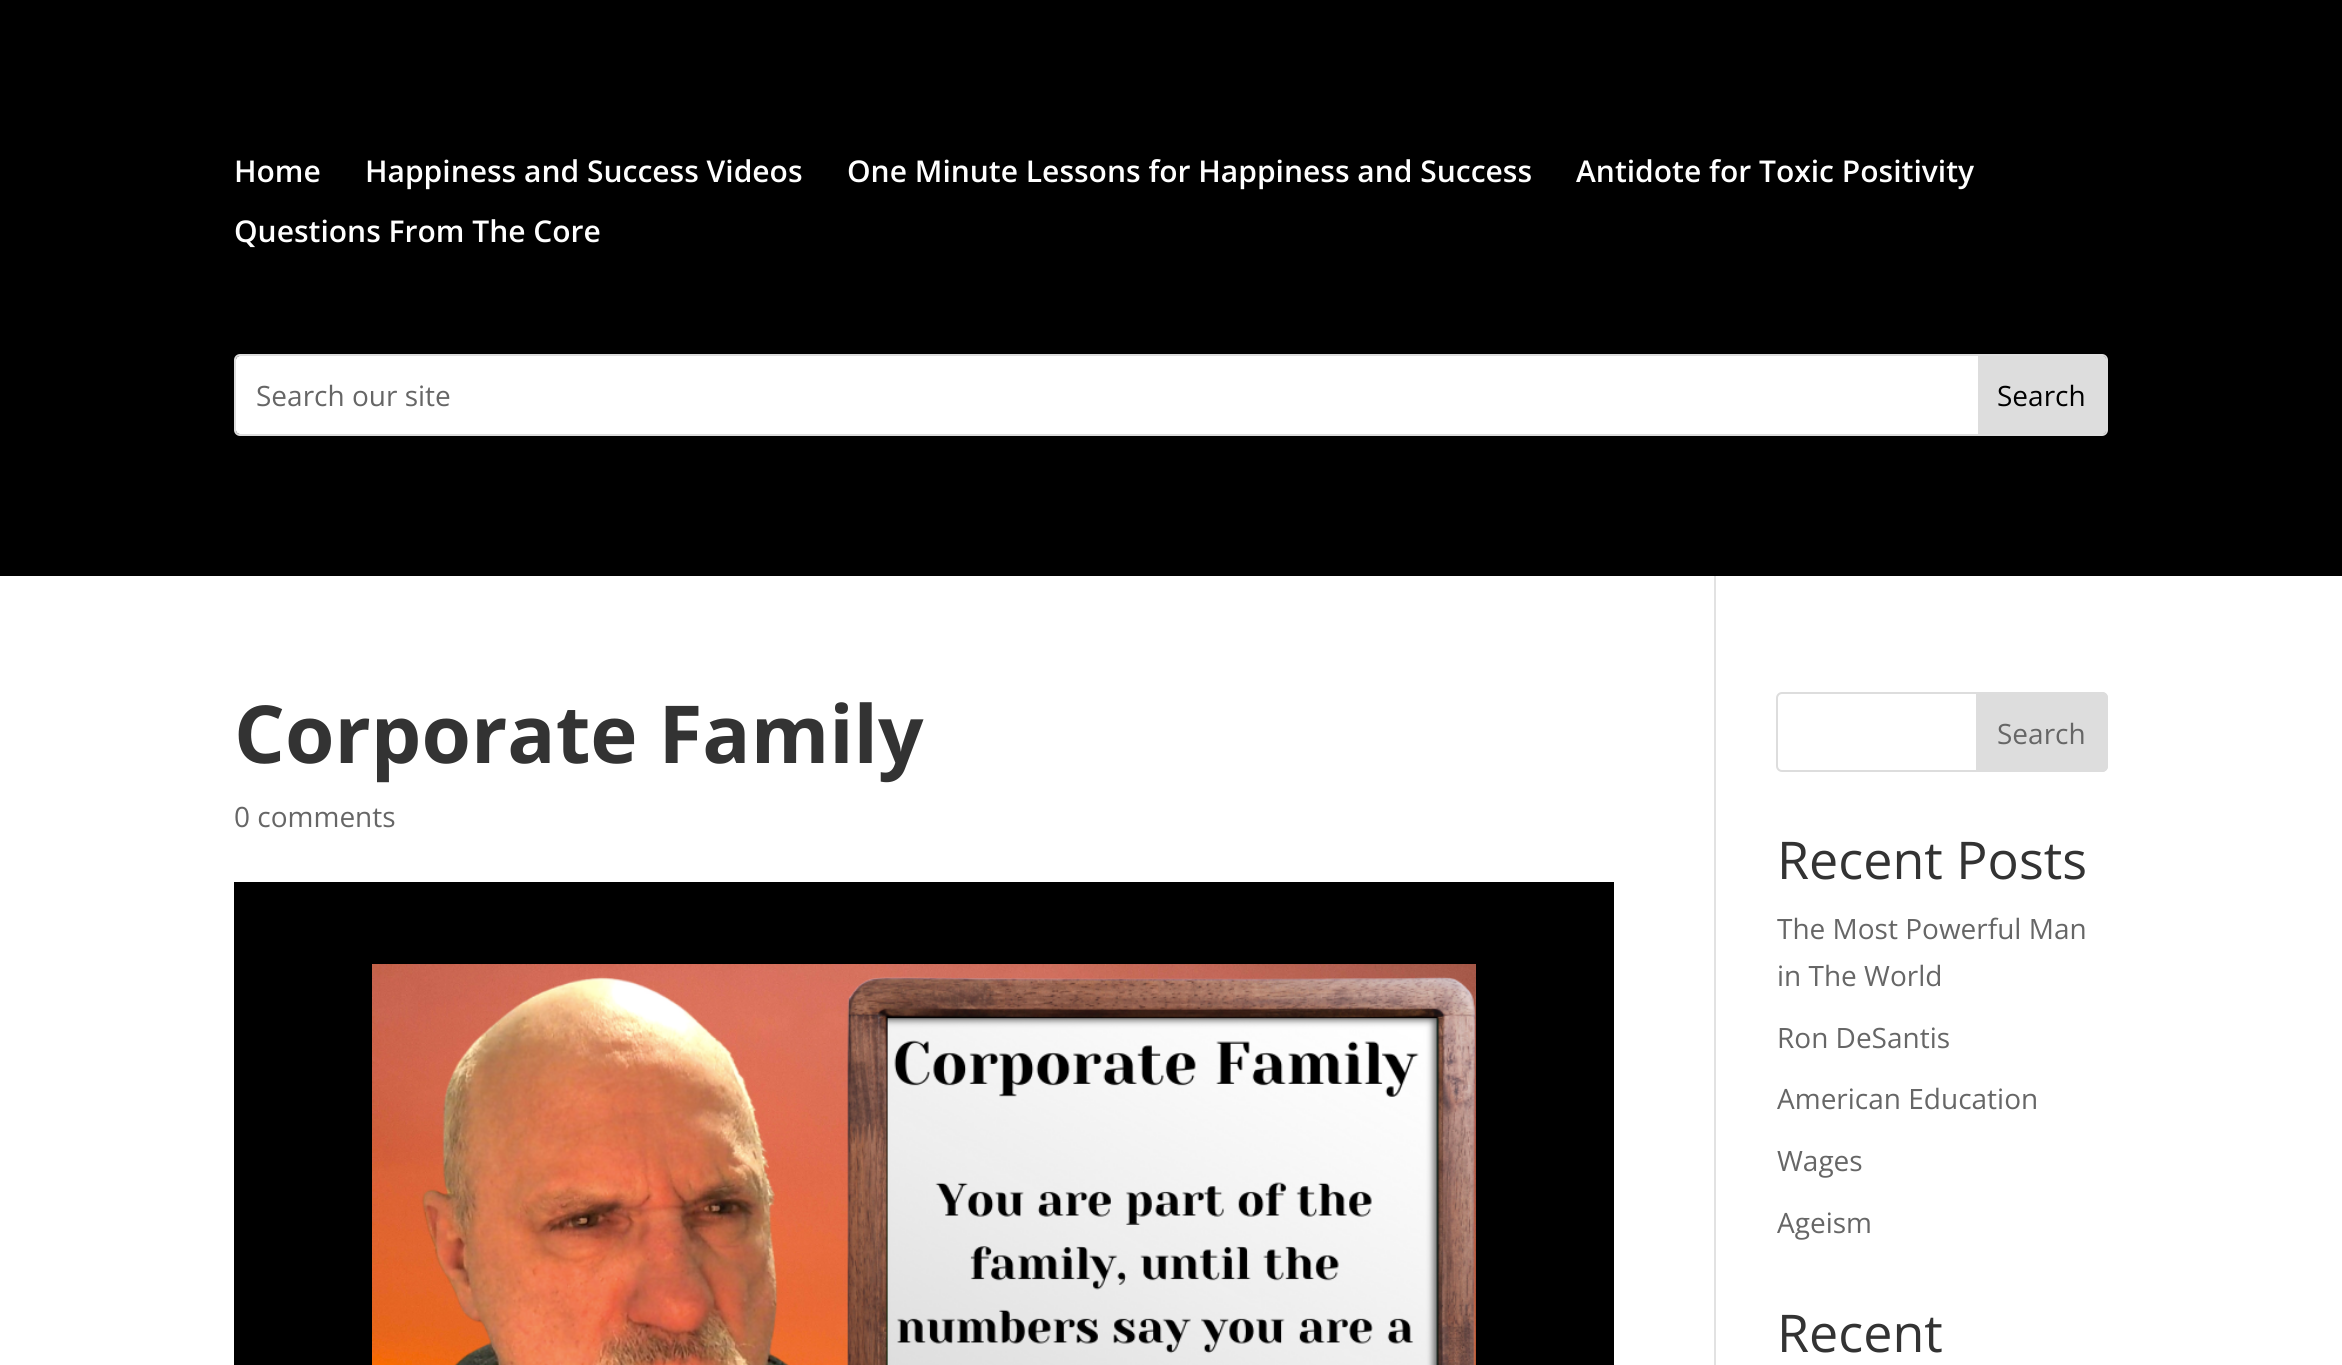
#include <cairo/cairo.h>
#include <math.h>
#include <stddef.h>


static void rounded_rect(cairo_t *cr, double x, double y, double w, double h, double r) {
  cairo_new_sub_path(cr);
  cairo_arc(cr, x + w - r, y + h - r, r, 0, M_PI / 2);
  cairo_arc(cr, x + r, y + h - r, r, M_PI / 2, M_PI);
  cairo_arc(cr, x + r, y + r, r, M_PI, 1.5 * M_PI);
  cairo_arc(cr, x + w - r, y + r, r, 1.5 * M_PI, 2 * M_PI);
  cairo_close_path(cr);
}

static void draw_image(cairo_t *cr, const char *path, double x, double y, double w, double h) {
  cairo_surface_t *image = cairo_image_surface_create_from_png(path);
  cairo_save(cr);
  cairo_set_source_surface(cr, image, x, y);
  cairo_rectangle(cr, x, y, w, h);
  cairo_fill(cr);
  cairo_restore(cr);
  cairo_surface_destroy(image);
}

static void draw(cairo_t *cr) {
  cairo_set_source_rgb(cr, 1, 1, 1);
  cairo_paint(cr);
  cairo_set_source_rgb(cr, 0, 0, 0);
  cairo_rectangle(cr, 0, 0, 2342, 576);
  cairo_fill(cr);
  rounded_rect(cr, 235, 355, 1872, 80, 5);
  cairo_set_source_rgb(cr, 221 / 255.0, 221 / 255.0, 221 / 255.0);
  cairo_stroke(cr);
  cairo_set_source_rgb(cr, 1, 1, 1);
  rounded_rect(cr, 236, 356, 1870, 78, 4);
  cairo_fill(cr);
  cairo_set_source_rgb(cr, 221 / 255.0, 221 / 255.0, 221 / 255.0);
  cairo_new_path(cr);
  cairo_move_to(cr, 1978, 356);
  cairo_line_to(cr, 2102, 356);
  cairo_curve_to(cr, 2104, 356, 2106, 358, 2106, 360);
  cairo_line_to(cr, 2106, 430);
  cairo_curve_to(cr, 2106, 432, 2104, 434, 2102, 434);
  cairo_line_to(cr, 1978, 434);
  cairo_close_path(cr);
  cairo_fill(cr);
  cairo_set_source_rgb(cr, 226 / 255.0, 226 / 255.0, 226 / 255.0);
  cairo_rectangle(cr, 1714, 576, 2, 789);
  cairo_fill(cr);
  cairo_set_source_rgb(cr, 0, 0, 0);
  cairo_rectangle(cr, 234, 882, 1380, 483);
  cairo_fill(cr);
  draw_image(cr, "images/1.png", 372, 964, 1104, 401);
  rounded_rect(cr, 1777, 693, 330, 78, 5);
  cairo_set_source_rgb(cr, 221 / 255.0, 221 / 255.0, 221 / 255.0);
  cairo_stroke(cr);
  cairo_new_path(cr);
  cairo_move_to(cr, 1977, 693);
  cairo_line_to(cr, 2102, 693);
  cairo_curve_to(cr, 2105, 693, 2107, 695, 2107, 698);
  cairo_line_to(cr, 2107, 766);
  cairo_curve_to(cr, 2107, 769, 2105, 771, 2102, 771);
  cairo_line_to(cr, 1977, 771);
  cairo_close_path(cr);
  cairo_fill_preserve(cr);
  cairo_stroke(cr);
  cairo_select_font_face(cr, "Open Sans SemiBold", CAIRO_FONT_SLANT_NORMAL, CAIRO_FONT_WEIGHT_NORMAL);
  cairo_set_font_size(cr, 30);
  cairo_set_source_rgb(cr, 1, 1, 1);
  cairo_move_to(cr, 234, 182);
  cairo_show_text(cr, "Home");
  cairo_move_to(cr, 365, 182);
  cairo_show_text(cr, "Happiness and Success Videos");
  cairo_move_to(cr, 847, 182);
  cairo_show_text(cr, "One Minute Lessons for Happiness and Success");
  cairo_move_to(cr, 1576, 182);
  cairo_show_text(cr, "Antidote for Toxic Positivity");
  cairo_move_to(cr, 234, 242);
  cairo_show_text(cr, "Questions From The Core");
  cairo_select_font_face(cr, "Open Sans", CAIRO_FONT_SLANT_NORMAL, CAIRO_FONT_WEIGHT_NORMAL);
  cairo_set_font_size(cr, 28);
  cairo_set_source_rgb(cr, 102 / 255.0, 102 / 255.0, 102 / 255.0);
  cairo_move_to(cr, 256, 406);
  cairo_show_text(cr, "Search our site");
  cairo_set_source_rgb(cr, 0, 0, 0);
  cairo_move_to(cr, 1997, 406);
  cairo_show_text(cr, "Search");
  cairo_select_font_face(cr, "Open Sans", CAIRO_FONT_SLANT_NORMAL, CAIRO_FONT_WEIGHT_BOLD);
  cairo_set_font_size(cr, 80);
  cairo_set_source_rgb(cr, 51 / 255.0, 51 / 255.0, 51 / 255.0);
  cairo_move_to(cr, 234, 763);
  cairo_show_text(cr, "Corporate Family");
  cairo_select_font_face(cr, "Open Sans", CAIRO_FONT_SLANT_NORMAL, CAIRO_FONT_WEIGHT_NORMAL);
  cairo_set_font_size(cr, 28);
  cairo_set_source_rgb(cr, 102 / 255.0, 102 / 255.0, 102 / 255.0);
  cairo_move_to(cr, 234, 827);
  cairo_show_text(cr, "0 comments");
  cairo_move_to(cr, 1997, 744);
  cairo_show_text(cr, "Search");
  cairo_set_font_size(cr, 52);
  cairo_set_source_rgb(cr, 51 / 255.0, 51 / 255.0, 51 / 255.0);
  cairo_move_to(cr, 1777, 879);
  cairo_show_text(cr, "Recent Posts");
  cairo_set_font_size(cr, 28);
  cairo_set_source_rgb(cr, 102 / 255.0, 102 / 255.0, 102 / 255.0);
  cairo_move_to(cr, 1777, 939);
  cairo_show_text(cr, "The Most Powerful Man");
  cairo_move_to(cr, 1777, 986);
  cairo_show_text(cr, "in The World");
  cairo_move_to(cr, 1777, 1048);
  cairo_show_text(cr, "Ron DeSantis");
  cairo_move_to(cr, 1777, 1109);
  cairo_show_text(cr, "American Education");
  cairo_move_to(cr, 1777, 1171);
  cairo_show_text(cr, "Wages");
  cairo_move_to(cr, 1777, 1233);
  cairo_show_text(cr, "Ageism");
  cairo_set_font_size(cr, 52);
  cairo_set_source_rgb(cr, 51 / 255.0, 51 / 255.0, 51 / 255.0);
  cairo_move_to(cr, 1777, 1352);
  cairo_show_text(cr, "Recent");
}

int main(void) {
  cairo_surface_t *surface = cairo_image_surface_create(CAIRO_FORMAT_RGB24, 2342, 1365);
  cairo_t *cr = cairo_create(surface);
  cairo_font_options_t *options = cairo_font_options_create();
  cairo_font_options_set_hint_metrics(options, CAIRO_HINT_METRICS_OFF);
  cairo_font_options_set_hint_style(options, CAIRO_HINT_STYLE_NONE);
  cairo_set_font_options(cr, options);
  cairo_set_miter_limit(cr, 4);
  draw(cr);
  cairo_surface_write_to_png(surface, "out.png");
  cairo_font_options_destroy(options);
  cairo_destroy(cr);
  cairo_surface_destroy(surface);
  return 0;
}
